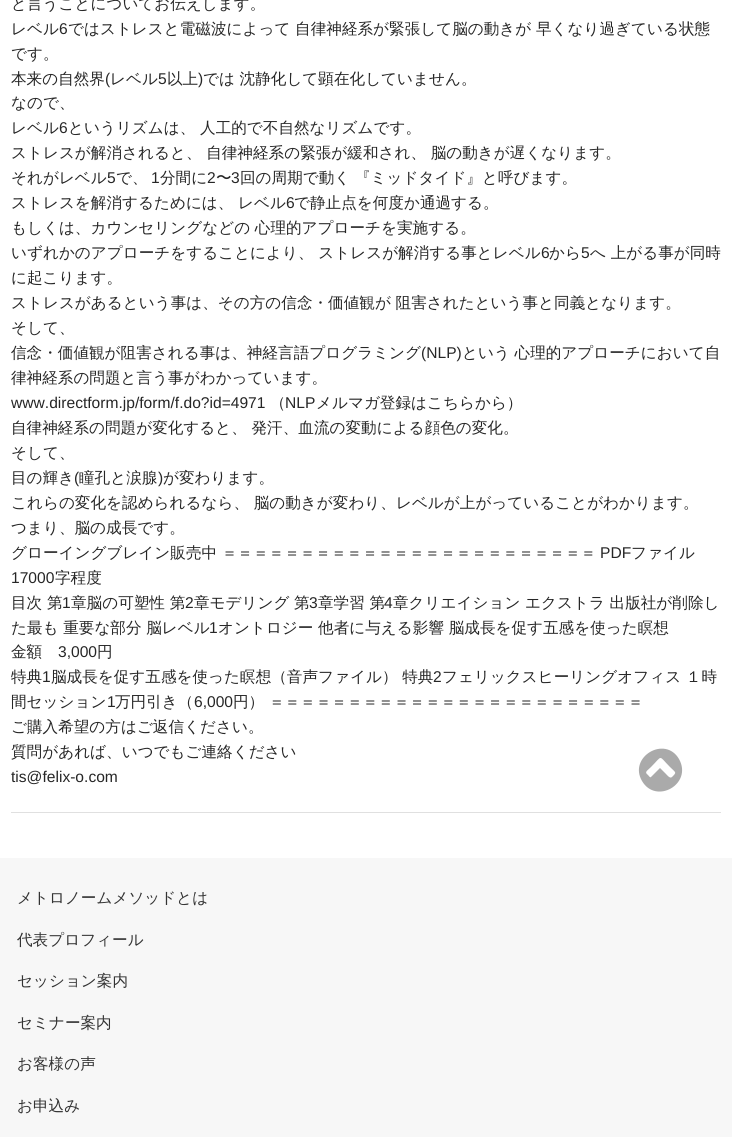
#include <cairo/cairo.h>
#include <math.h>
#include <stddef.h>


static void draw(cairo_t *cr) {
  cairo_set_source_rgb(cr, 1, 1, 1);
  cairo_paint(cr);
  cairo_set_source_rgb(cr, 224 / 255.0, 224 / 255.0, 224 / 255.0);
  cairo_rectangle(cr, 11, 812, 710, 1);
  cairo_fill(cr);
  cairo_set_source_rgb(cr, 170 / 255.0, 170 / 255.0, 170 / 255.0);
  cairo_new_path(cr);
  cairo_move_to(cr, 672, 777);
  cairo_curve_to(cr, 677, 772, 676, 773, 670, 767);
  cairo_curve_to(cr, 658, 755, 663, 755, 651, 767);
  cairo_curve_to(cr, 647, 771, 644, 772, 648, 775);
  cairo_curve_to(cr, 649, 776, 650, 778, 651, 777);
  cairo_line_to(cr, 660, 768);
  cairo_line_to(cr, 666, 774);
  cairo_curve_to(cr, 667, 775, 670, 779, 672, 777);
  cairo_close_path(cr);
  cairo_move_to(cr, 679, 759);
  cairo_curve_to(cr, 693, 784, 656, 805, 642, 781);
  cairo_curve_to(cr, 628, 757, 665, 735, 679, 759);
  cairo_close_path(cr);
  cairo_fill(cr);
  cairo_set_source_rgb(cr, 247 / 255.0, 247 / 255.0, 247 / 255.0);
  cairo_rectangle(cr, 0, 858, 732, 279);
  cairo_fill(cr);
  cairo_select_font_face(cr, "WenQuanYi Zen Hei Medium", CAIRO_FONT_SLANT_NORMAL, CAIRO_FONT_WEIGHT_NORMAL);
  cairo_set_font_size(cr, 15.6);
  cairo_set_source_rgb(cr, 38 / 255.0, 38 / 255.0, 38 / 255.0);
  cairo_move_to(cr, 11, 9);
  cairo_show_text(cr, "と言うことについてお伝えします。");
  cairo_move_to(cr, 11, 34);
  cairo_show_text(cr, "レベル");
  cairo_select_font_face(cr, "Liberation Sans", CAIRO_FONT_SLANT_NORMAL, CAIRO_FONT_WEIGHT_NORMAL);
  cairo_move_to(cr, 59, 34);
  cairo_show_text(cr, "6");
  cairo_select_font_face(cr, "WenQuanYi Zen Hei Medium", CAIRO_FONT_SLANT_NORMAL, CAIRO_FONT_WEIGHT_NORMAL);
  cairo_move_to(cr, 68, 34);
  cairo_show_text(cr, "ではストレスと電磁波によって 自律神経系が緊張して脳の動きが 早くなり過ぎている状態");
  cairo_move_to(cr, 11, 59);
  cairo_show_text(cr, "です。");
  cairo_move_to(cr, 11, 84);
  cairo_show_text(cr, "本来の自然界");
  cairo_select_font_face(cr, "Liberation Sans", CAIRO_FONT_SLANT_NORMAL, CAIRO_FONT_WEIGHT_NORMAL);
  cairo_move_to(cr, 105, 84);
  cairo_show_text(cr, "(");
  cairo_select_font_face(cr, "WenQuanYi Zen Hei Medium", CAIRO_FONT_SLANT_NORMAL, CAIRO_FONT_WEIGHT_NORMAL);
  cairo_move_to(cr, 110, 84);
  cairo_show_text(cr, "レベル");
  cairo_select_font_face(cr, "Liberation Sans", CAIRO_FONT_SLANT_NORMAL, CAIRO_FONT_WEIGHT_NORMAL);
  cairo_move_to(cr, 158, 84);
  cairo_show_text(cr, "5");
  cairo_select_font_face(cr, "WenQuanYi Zen Hei Medium", CAIRO_FONT_SLANT_NORMAL, CAIRO_FONT_WEIGHT_NORMAL);
  cairo_move_to(cr, 167, 84);
  cairo_show_text(cr, "以上");
  cairo_select_font_face(cr, "Liberation Sans", CAIRO_FONT_SLANT_NORMAL, CAIRO_FONT_WEIGHT_NORMAL);
  cairo_move_to(cr, 198, 84);
  cairo_show_text(cr, ")");
  cairo_select_font_face(cr, "WenQuanYi Zen Hei Medium", CAIRO_FONT_SLANT_NORMAL, CAIRO_FONT_WEIGHT_NORMAL);
  cairo_move_to(cr, 203, 84);
  cairo_show_text(cr, "では 沈静化して顕在化していません。");
  cairo_move_to(cr, 11, 108);
  cairo_show_text(cr, "なので、");
  cairo_move_to(cr, 11, 133);
  cairo_show_text(cr, "レベル");
  cairo_select_font_face(cr, "Liberation Sans", CAIRO_FONT_SLANT_NORMAL, CAIRO_FONT_WEIGHT_NORMAL);
  cairo_move_to(cr, 59, 133);
  cairo_show_text(cr, "6");
  cairo_select_font_face(cr, "WenQuanYi Zen Hei Medium", CAIRO_FONT_SLANT_NORMAL, CAIRO_FONT_WEIGHT_NORMAL);
  cairo_move_to(cr, 68, 133);
  cairo_show_text(cr, "というリズムは、 人工的で不自然なリズムです。");
  cairo_move_to(cr, 11, 158);
  cairo_show_text(cr, "ストレスが解消されると、 自律神経系の緊張が緩和され、 脳の動きが遅くなります。");
  cairo_move_to(cr, 11, 183);
  cairo_show_text(cr, "それがレベル");
  cairo_select_font_face(cr, "Liberation Sans", CAIRO_FONT_SLANT_NORMAL, CAIRO_FONT_WEIGHT_NORMAL);
  cairo_move_to(cr, 107, 183);
  cairo_show_text(cr, "5");
  cairo_select_font_face(cr, "WenQuanYi Zen Hei Medium", CAIRO_FONT_SLANT_NORMAL, CAIRO_FONT_WEIGHT_NORMAL);
  cairo_move_to(cr, 116, 183);
  cairo_show_text(cr, "で、");
  cairo_select_font_face(cr, "Liberation Sans", CAIRO_FONT_SLANT_NORMAL, CAIRO_FONT_WEIGHT_NORMAL);
  cairo_move_to(cr, 151, 183);
  cairo_show_text(cr, "1");
  cairo_select_font_face(cr, "WenQuanYi Zen Hei Medium", CAIRO_FONT_SLANT_NORMAL, CAIRO_FONT_WEIGHT_NORMAL);
  cairo_move_to(cr, 160, 183);
  cairo_show_text(cr, "分間に");
  cairo_select_font_face(cr, "Liberation Sans", CAIRO_FONT_SLANT_NORMAL, CAIRO_FONT_WEIGHT_NORMAL);
  cairo_move_to(cr, 207, 183);
  cairo_show_text(cr, "2");
  cairo_select_font_face(cr, "WenQuanYi Zen Hei Medium", CAIRO_FONT_SLANT_NORMAL, CAIRO_FONT_WEIGHT_NORMAL);
  cairo_move_to(cr, 216, 183);
  cairo_show_text(cr, "〜");
  cairo_select_font_face(cr, "Liberation Sans", CAIRO_FONT_SLANT_NORMAL, CAIRO_FONT_WEIGHT_NORMAL);
  cairo_move_to(cr, 231, 183);
  cairo_show_text(cr, "3");
  cairo_select_font_face(cr, "WenQuanYi Zen Hei Medium", CAIRO_FONT_SLANT_NORMAL, CAIRO_FONT_WEIGHT_NORMAL);
  cairo_move_to(cr, 240, 183);
  cairo_show_text(cr, "回の周期で動く 『ミッドタイド』と呼びます。");
  cairo_move_to(cr, 11, 208);
  cairo_show_text(cr, "ストレスを解消するためには、 レベル");
  cairo_select_font_face(cr, "Liberation Sans", CAIRO_FONT_SLANT_NORMAL, CAIRO_FONT_WEIGHT_NORMAL);
  cairo_move_to(cr, 286, 208);
  cairo_show_text(cr, "6");
  cairo_select_font_face(cr, "WenQuanYi Zen Hei Medium", CAIRO_FONT_SLANT_NORMAL, CAIRO_FONT_WEIGHT_NORMAL);
  cairo_move_to(cr, 294, 208);
  cairo_show_text(cr, "で静止点を何度か通過する。");
  cairo_move_to(cr, 11, 233);
  cairo_show_text(cr, "もしくは、カウンセリングなどの 心理的アプローチを実施する。");
  cairo_move_to(cr, 11, 258);
  cairo_show_text(cr, "いずれかのアプローチをすることにより、 ストレスが解消する事とレベル");
  cairo_select_font_face(cr, "Liberation Sans", CAIRO_FONT_SLANT_NORMAL, CAIRO_FONT_WEIGHT_NORMAL);
  cairo_move_to(cr, 541, 258);
  cairo_show_text(cr, "6");
  cairo_select_font_face(cr, "WenQuanYi Zen Hei Medium", CAIRO_FONT_SLANT_NORMAL, CAIRO_FONT_WEIGHT_NORMAL);
  cairo_move_to(cr, 549, 258);
  cairo_show_text(cr, "から");
  cairo_select_font_face(cr, "Liberation Sans", CAIRO_FONT_SLANT_NORMAL, CAIRO_FONT_WEIGHT_NORMAL);
  cairo_move_to(cr, 581, 258);
  cairo_show_text(cr, "5");
  cairo_select_font_face(cr, "WenQuanYi Zen Hei Medium", CAIRO_FONT_SLANT_NORMAL, CAIRO_FONT_WEIGHT_NORMAL);
  cairo_move_to(cr, 590, 258);
  cairo_show_text(cr, "へ 上がる事が同時");
  cairo_move_to(cr, 11, 283);
  cairo_show_text(cr, "に起こります。");
  cairo_move_to(cr, 11, 308);
  cairo_show_text(cr, "ストレスがあるという事は、その方の信念・価値観が 阻害されたという事と同義となります。");
  cairo_move_to(cr, 11, 333);
  cairo_show_text(cr, "そして、");
  cairo_move_to(cr, 11, 358);
  cairo_show_text(cr, "信念・価値観が阻害される事は、神経言語プログラミング");
  cairo_select_font_face(cr, "Liberation Sans", CAIRO_FONT_SLANT_NORMAL, CAIRO_FONT_WEIGHT_NORMAL);
  cairo_move_to(cr, 421, 358);
  cairo_show_text(cr, "(NLP)");
  cairo_select_font_face(cr, "WenQuanYi Zen Hei Medium", CAIRO_FONT_SLANT_NORMAL, CAIRO_FONT_WEIGHT_NORMAL);
  cairo_move_to(cr, 462, 358);
  cairo_show_text(cr, "という 心理的アプローチにおいて自");
  cairo_move_to(cr, 11, 383);
  cairo_show_text(cr, "律神経系の問題と言う事がわかっています。");
  cairo_select_font_face(cr, "Liberation Sans", CAIRO_FONT_SLANT_NORMAL, CAIRO_FONT_WEIGHT_NORMAL);
  cairo_move_to(cr, 11, 408);
  cairo_show_text(cr, "www.directform.jp/form/f.do?id=4971");
  cairo_select_font_face(cr, "WenQuanYi Zen Hei Medium", CAIRO_FONT_SLANT_NORMAL, CAIRO_FONT_WEIGHT_NORMAL);
  cairo_move_to(cr, 270, 408);
  cairo_show_text(cr, "（");
  cairo_select_font_face(cr, "Liberation Sans", CAIRO_FONT_SLANT_NORMAL, CAIRO_FONT_WEIGHT_NORMAL);
  cairo_move_to(cr, 285, 408);
  cairo_show_text(cr, "NLP");
  cairo_select_font_face(cr, "WenQuanYi Zen Hei Medium", CAIRO_FONT_SLANT_NORMAL, CAIRO_FONT_WEIGHT_NORMAL);
  cairo_move_to(cr, 316, 408);
  cairo_show_text(cr, "メルマガ登録はこちらから）");
  cairo_move_to(cr, 11, 433);
  cairo_show_text(cr, "自律神経系の問題が変化すると、 発汗、血流の変動による顔色の変化。");
  cairo_move_to(cr, 11, 458);
  cairo_show_text(cr, "そして、");
  cairo_move_to(cr, 11, 483);
  cairo_show_text(cr, "目の輝き");
  cairo_select_font_face(cr, "Liberation Sans", CAIRO_FONT_SLANT_NORMAL, CAIRO_FONT_WEIGHT_NORMAL);
  cairo_move_to(cr, 74, 483);
  cairo_show_text(cr, "(");
  cairo_select_font_face(cr, "WenQuanYi Zen Hei Medium", CAIRO_FONT_SLANT_NORMAL, CAIRO_FONT_WEIGHT_NORMAL);
  cairo_move_to(cr, 79, 483);
  cairo_show_text(cr, "瞳孔と涙腺");
  cairo_select_font_face(cr, "Liberation Sans", CAIRO_FONT_SLANT_NORMAL, CAIRO_FONT_WEIGHT_NORMAL);
  cairo_move_to(cr, 158, 483);
  cairo_show_text(cr, ")");
  cairo_select_font_face(cr, "WenQuanYi Zen Hei Medium", CAIRO_FONT_SLANT_NORMAL, CAIRO_FONT_WEIGHT_NORMAL);
  cairo_move_to(cr, 163, 483);
  cairo_show_text(cr, "が変わります。");
  cairo_move_to(cr, 11, 508);
  cairo_show_text(cr, "これらの変化を認められるなら、 脳の動きが変わり、レベルが上がっていることがわかります。");
  cairo_move_to(cr, 11, 533);
  cairo_show_text(cr, "つまり、脳の成長です。");
  cairo_move_to(cr, 11, 558);
  cairo_show_text(cr, "グローイングブレイン販売中 ＝＝＝＝＝＝＝＝＝＝＝＝＝＝＝＝＝＝＝＝＝＝＝＝");
  cairo_select_font_face(cr, "Liberation Sans", CAIRO_FONT_SLANT_NORMAL, CAIRO_FONT_WEIGHT_NORMAL);
  cairo_move_to(cr, 600, 558);
  cairo_show_text(cr, "PDF");
  cairo_select_font_face(cr, "WenQuanYi Zen Hei Medium", CAIRO_FONT_SLANT_NORMAL, CAIRO_FONT_WEIGHT_NORMAL);
  cairo_move_to(cr, 631, 558);
  cairo_show_text(cr, "ファイル");
  cairo_select_font_face(cr, "Liberation Sans", CAIRO_FONT_SLANT_NORMAL, CAIRO_FONT_WEIGHT_NORMAL);
  cairo_move_to(cr, 11, 583);
  cairo_show_text(cr, "17000");
  cairo_select_font_face(cr, "WenQuanYi Zen Hei Medium", CAIRO_FONT_SLANT_NORMAL, CAIRO_FONT_WEIGHT_NORMAL);
  cairo_move_to(cr, 55, 583);
  cairo_show_text(cr, "字程度");
  cairo_move_to(cr, 11, 608);
  cairo_show_text(cr, "目次 第");
  cairo_select_font_face(cr, "Liberation Sans", CAIRO_FONT_SLANT_NORMAL, CAIRO_FONT_WEIGHT_NORMAL);
  cairo_move_to(cr, 62, 608);
  cairo_show_text(cr, "1");
  cairo_select_font_face(cr, "WenQuanYi Zen Hei Medium", CAIRO_FONT_SLANT_NORMAL, CAIRO_FONT_WEIGHT_NORMAL);
  cairo_move_to(cr, 71, 608);
  cairo_show_text(cr, "章脳の可塑性 第");
  cairo_select_font_face(cr, "Liberation Sans", CAIRO_FONT_SLANT_NORMAL, CAIRO_FONT_WEIGHT_NORMAL);
  cairo_move_to(cr, 185, 608);
  cairo_show_text(cr, "2");
  cairo_select_font_face(cr, "WenQuanYi Zen Hei Medium", CAIRO_FONT_SLANT_NORMAL, CAIRO_FONT_WEIGHT_NORMAL);
  cairo_move_to(cr, 194, 608);
  cairo_show_text(cr, "章モデリング 第");
  cairo_select_font_face(cr, "Liberation Sans", CAIRO_FONT_SLANT_NORMAL, CAIRO_FONT_WEIGHT_NORMAL);
  cairo_move_to(cr, 309, 608);
  cairo_show_text(cr, "3");
  cairo_select_font_face(cr, "WenQuanYi Zen Hei Medium", CAIRO_FONT_SLANT_NORMAL, CAIRO_FONT_WEIGHT_NORMAL);
  cairo_move_to(cr, 318, 608);
  cairo_show_text(cr, "章学習 第");
  cairo_select_font_face(cr, "Liberation Sans", CAIRO_FONT_SLANT_NORMAL, CAIRO_FONT_WEIGHT_NORMAL);
  cairo_move_to(cr, 384, 608);
  cairo_show_text(cr, "4");
  cairo_select_font_face(cr, "WenQuanYi Zen Hei Medium", CAIRO_FONT_SLANT_NORMAL, CAIRO_FONT_WEIGHT_NORMAL);
  cairo_move_to(cr, 393, 608);
  cairo_show_text(cr, "章クリエイション エクストラ 出版社が削除し");
  cairo_move_to(cr, 11, 633);
  cairo_show_text(cr, "た最も 重要な部分 脳レベル");
  cairo_select_font_face(cr, "Liberation Sans", CAIRO_FONT_SLANT_NORMAL, CAIRO_FONT_WEIGHT_NORMAL);
  cairo_move_to(cr, 209, 633);
  cairo_show_text(cr, "1");
  cairo_select_font_face(cr, "WenQuanYi Zen Hei Medium", CAIRO_FONT_SLANT_NORMAL, CAIRO_FONT_WEIGHT_NORMAL);
  cairo_move_to(cr, 218, 633);
  cairo_show_text(cr, "オントロジー 他者に与える影響 脳成長を促す五感を使った瞑想");
  cairo_move_to(cr, 11, 657);
  cairo_show_text(cr, "金額");
  cairo_select_font_face(cr, "Liberation Sans", CAIRO_FONT_SLANT_NORMAL, CAIRO_FONT_WEIGHT_NORMAL);
  cairo_move_to(cr, 58, 657);
  cairo_show_text(cr, "3,000");
  cairo_select_font_face(cr, "WenQuanYi Zen Hei Medium", CAIRO_FONT_SLANT_NORMAL, CAIRO_FONT_WEIGHT_NORMAL);
  cairo_move_to(cr, 97, 657);
  cairo_show_text(cr, "円");
  cairo_move_to(cr, 11, 682);
  cairo_show_text(cr, "特典");
  cairo_select_font_face(cr, "Liberation Sans", CAIRO_FONT_SLANT_NORMAL, CAIRO_FONT_WEIGHT_NORMAL);
  cairo_move_to(cr, 42, 682);
  cairo_show_text(cr, "1");
  cairo_select_font_face(cr, "WenQuanYi Zen Hei Medium", CAIRO_FONT_SLANT_NORMAL, CAIRO_FONT_WEIGHT_NORMAL);
  cairo_move_to(cr, 51, 682);
  cairo_show_text(cr, "脳成長を促す五感を使った瞑想（音声ファイル） 特典");
  cairo_select_font_face(cr, "Liberation Sans", CAIRO_FONT_SLANT_NORMAL, CAIRO_FONT_WEIGHT_NORMAL);
  cairo_move_to(cr, 433, 682);
  cairo_show_text(cr, "2");
  cairo_select_font_face(cr, "WenQuanYi Zen Hei Medium", CAIRO_FONT_SLANT_NORMAL, CAIRO_FONT_WEIGHT_NORMAL);
  cairo_move_to(cr, 442, 682);
  cairo_show_text(cr, "フェリックスヒーリングオフィス １時");
  cairo_move_to(cr, 11, 707);
  cairo_show_text(cr, "間セッション");
  cairo_select_font_face(cr, "Liberation Sans", CAIRO_FONT_SLANT_NORMAL, CAIRO_FONT_WEIGHT_NORMAL);
  cairo_move_to(cr, 107, 707);
  cairo_show_text(cr, "1");
  cairo_select_font_face(cr, "WenQuanYi Zen Hei Medium", CAIRO_FONT_SLANT_NORMAL, CAIRO_FONT_WEIGHT_NORMAL);
  cairo_move_to(cr, 115, 707);
  cairo_show_text(cr, "万円引き（");
  cairo_select_font_face(cr, "Liberation Sans", CAIRO_FONT_SLANT_NORMAL, CAIRO_FONT_WEIGHT_NORMAL);
  cairo_move_to(cr, 194, 707);
  cairo_show_text(cr, "6,000");
  cairo_select_font_face(cr, "WenQuanYi Zen Hei Medium", CAIRO_FONT_SLANT_NORMAL, CAIRO_FONT_WEIGHT_NORMAL);
  cairo_move_to(cr, 233, 707);
  cairo_show_text(cr, "円） ＝＝＝＝＝＝＝＝＝＝＝＝＝＝＝＝＝＝＝＝＝＝＝＝");
  cairo_move_to(cr, 11, 732);
  cairo_show_text(cr, "ご購入希望の方はご返信ください。");
  cairo_move_to(cr, 11, 757);
  cairo_show_text(cr, "質問があれば、いつでもご連絡ください");
  cairo_select_font_face(cr, "Liberation Sans", CAIRO_FONT_SLANT_NORMAL, CAIRO_FONT_WEIGHT_NORMAL);
  cairo_move_to(cr, 11, 782);
  cairo_show_text(cr, "tis@felix-o.com");
  cairo_select_font_face(cr, "WenQuanYi Zen Hei Medium", CAIRO_FONT_SLANT_NORMAL, CAIRO_FONT_WEIGHT_NORMAL);
  cairo_set_source_rgb(cr, 51 / 255.0, 51 / 255.0, 51 / 255.0);
  cairo_move_to(cr, 17, 903);
  cairo_show_text(cr, "メトロノームメソッドとは");
  cairo_move_to(cr, 17, 945);
  cairo_show_text(cr, "代表プロフィール");
  cairo_move_to(cr, 17, 986);
  cairo_show_text(cr, "セッション案内");
  cairo_move_to(cr, 17, 1028);
  cairo_show_text(cr, "セミナー案内");
  cairo_move_to(cr, 17, 1069);
  cairo_show_text(cr, "お客様の声");
  cairo_move_to(cr, 17, 1111);
  cairo_show_text(cr, "お申込み");
}

int main(void) {
  cairo_surface_t *surface = cairo_image_surface_create(CAIRO_FORMAT_RGB24, 732, 1137);
  cairo_t *cr = cairo_create(surface);
  cairo_font_options_t *options = cairo_font_options_create();
  cairo_font_options_set_hint_metrics(options, CAIRO_HINT_METRICS_OFF);
  cairo_font_options_set_hint_style(options, CAIRO_HINT_STYLE_NONE);
  cairo_set_font_options(cr, options);
  cairo_set_miter_limit(cr, 4);
  draw(cr);
  cairo_surface_write_to_png(surface, "out.png");
  cairo_font_options_destroy(options);
  cairo_destroy(cr);
  cairo_surface_destroy(surface);
  return 0;
}
